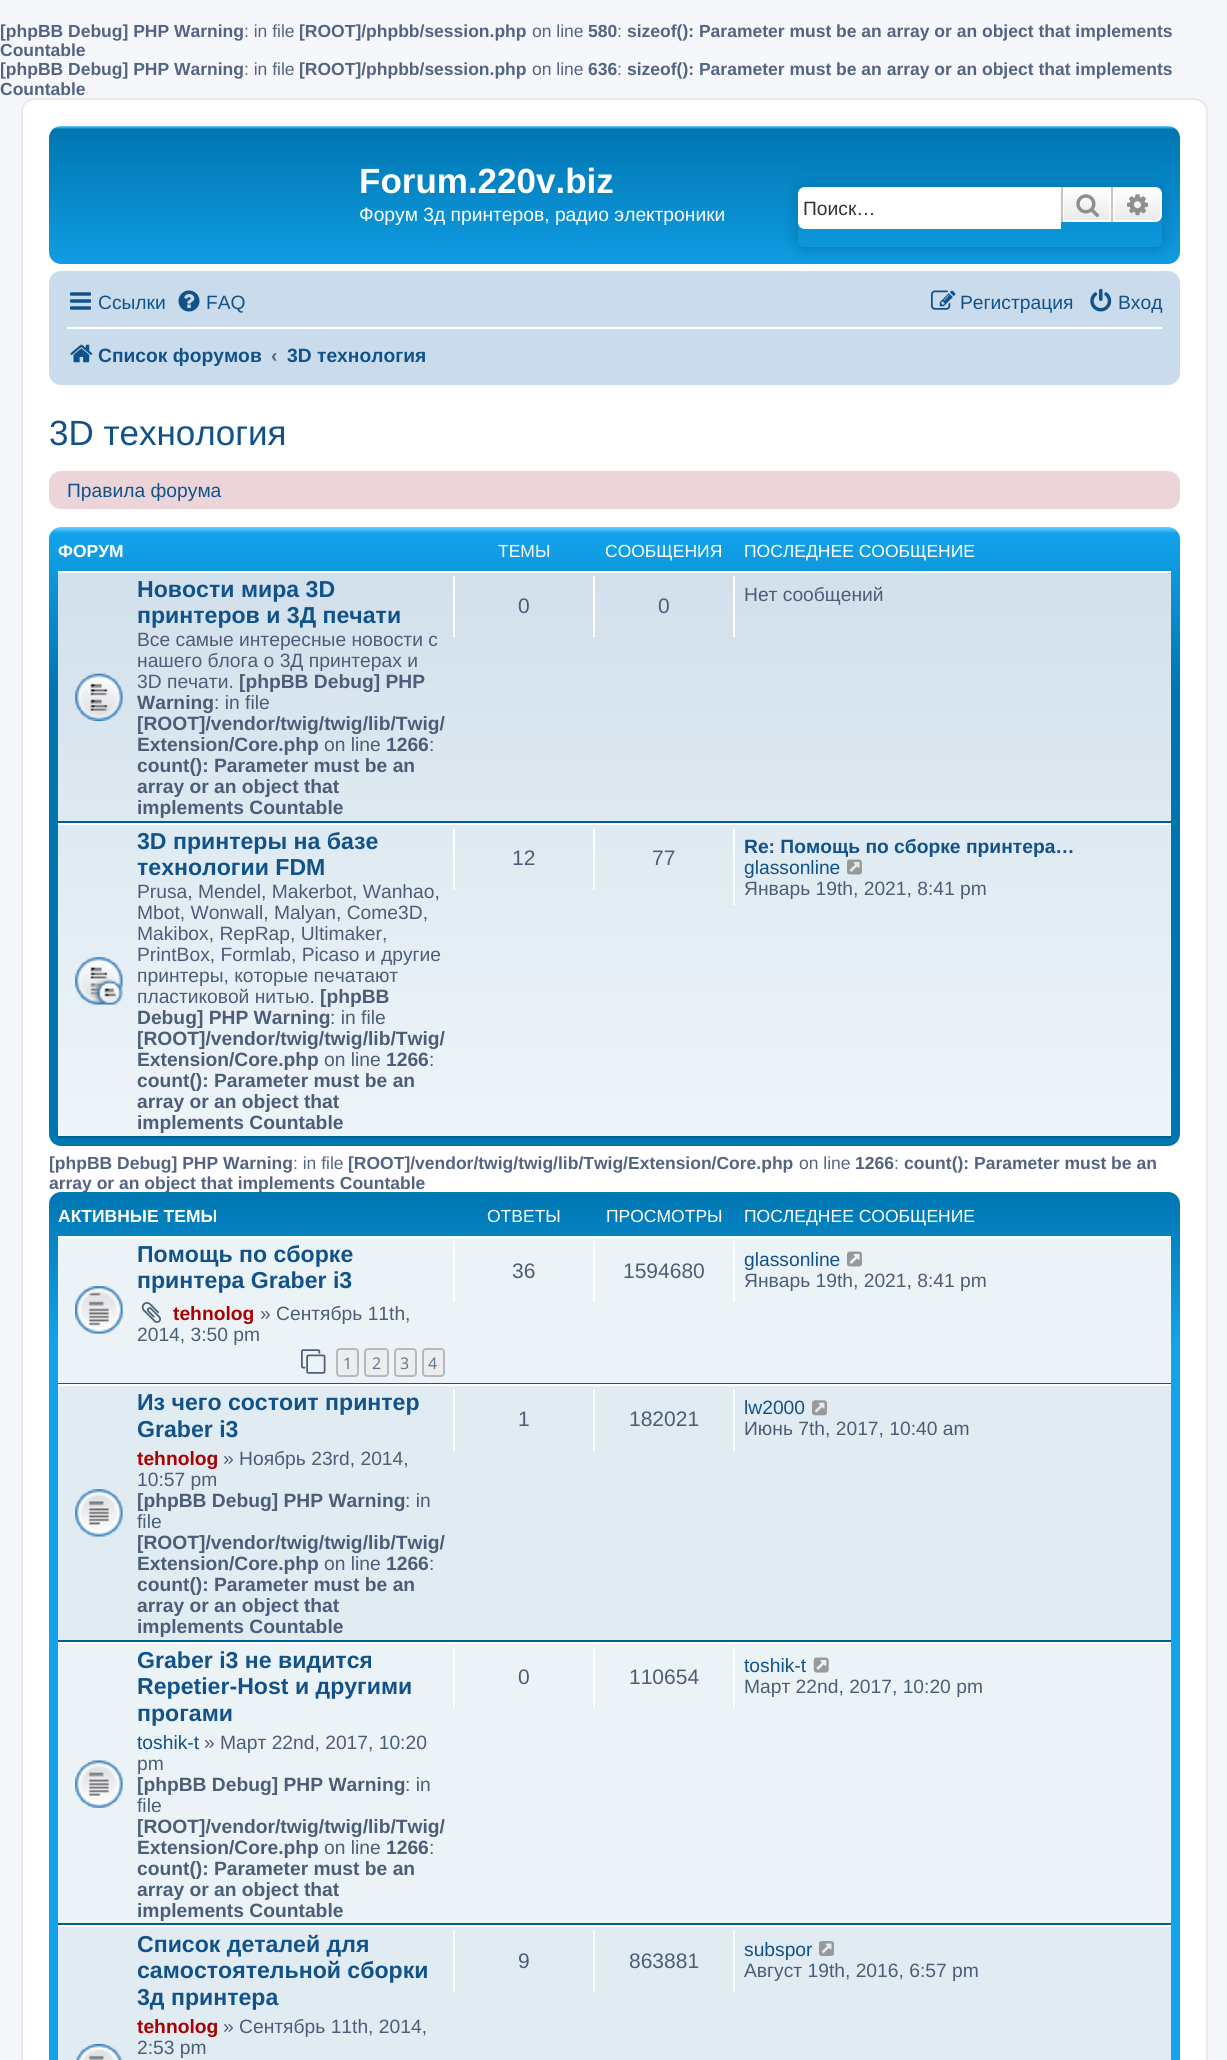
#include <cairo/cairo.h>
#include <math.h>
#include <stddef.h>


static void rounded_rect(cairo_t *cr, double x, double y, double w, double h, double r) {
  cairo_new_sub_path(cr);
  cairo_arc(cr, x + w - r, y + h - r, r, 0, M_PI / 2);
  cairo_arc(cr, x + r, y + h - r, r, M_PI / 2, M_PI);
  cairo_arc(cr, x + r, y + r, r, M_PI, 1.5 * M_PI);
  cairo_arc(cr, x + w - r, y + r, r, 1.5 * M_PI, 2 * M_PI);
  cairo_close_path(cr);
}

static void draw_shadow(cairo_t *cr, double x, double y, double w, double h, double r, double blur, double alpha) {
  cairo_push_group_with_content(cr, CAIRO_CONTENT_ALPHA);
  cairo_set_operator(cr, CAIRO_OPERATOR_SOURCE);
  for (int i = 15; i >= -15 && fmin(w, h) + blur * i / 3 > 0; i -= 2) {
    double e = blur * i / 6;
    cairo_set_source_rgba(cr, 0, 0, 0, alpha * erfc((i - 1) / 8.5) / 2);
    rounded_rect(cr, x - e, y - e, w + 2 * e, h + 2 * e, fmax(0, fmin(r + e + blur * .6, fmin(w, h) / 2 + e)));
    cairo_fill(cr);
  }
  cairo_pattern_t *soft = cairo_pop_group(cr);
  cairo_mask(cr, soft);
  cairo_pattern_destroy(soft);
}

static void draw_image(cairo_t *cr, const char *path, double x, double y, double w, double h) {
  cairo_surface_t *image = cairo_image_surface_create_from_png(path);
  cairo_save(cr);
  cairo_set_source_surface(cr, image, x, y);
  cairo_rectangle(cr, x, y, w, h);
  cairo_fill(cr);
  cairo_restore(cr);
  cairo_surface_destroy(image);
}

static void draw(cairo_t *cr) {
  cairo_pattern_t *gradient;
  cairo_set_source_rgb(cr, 245 / 255.0, 247 / 255.0, 250 / 255.0);
  cairo_paint(cr);
  cairo_set_source_rgb(cr, 1, 1, 1);
  rounded_rect(cr, 22, 99, 1185, 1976, 13);
  cairo_fill_preserve(cr);
  cairo_set_source_rgb(cr, 230 / 255.0, 233 / 255.0, 237 / 255.0);
  cairo_stroke(cr);
  gradient = cairo_pattern_create_linear(614, 126, 614, 287);
  cairo_pattern_add_color_stop_rgba(gradient, 0, 106 / 255.0, 206 / 255.0, 1, 1);
  cairo_pattern_add_color_stop_rgba(gradient, 0.02, 0, 118 / 255.0, 177 / 255.0, 1);
  cairo_pattern_add_color_stop_rgba(gradient, 1, 18 / 255.0, 163 / 255.0, 235 / 255.0, 1);
  cairo_set_source(cr, gradient);
  cairo_pattern_destroy(gradient);
  rounded_rect(cr, 49, 126, 1131, 138, 12);
  cairo_fill(cr);
  cairo_set_source_rgb(cr, 202 / 255.0, 220 / 255.0, 235 / 255.0);
  rounded_rect(cr, 49, 271, 1131, 114, 12);
  cairo_fill(cr);
  cairo_save(cr);
  cairo_set_fill_rule(cr, CAIRO_FILL_RULE_EVEN_ODD);
  cairo_new_path(cr);
  cairo_move_to(cr, 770, 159);
  cairo_line_to(cr, 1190, 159);
  cairo_line_to(cr, 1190, 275);
  cairo_line_to(cr, 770, 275);
  cairo_close_path(cr);
  cairo_move_to(cr, 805, 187);
  cairo_line_to(cr, 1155, 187);
  cairo_curve_to(cr, 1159, 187, 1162, 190, 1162, 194);
  cairo_line_to(cr, 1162, 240);
  cairo_curve_to(cr, 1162, 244, 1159, 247, 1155, 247);
  cairo_line_to(cr, 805, 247);
  cairo_curve_to(cr, 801, 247, 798, 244, 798, 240);
  cairo_line_to(cr, 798, 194);
  cairo_curve_to(cr, 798, 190, 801, 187, 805, 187);
  cairo_close_path(cr);
  cairo_clip(cr);
  cairo_set_source_rgb(cr, 0, 117 / 255.0, 176 / 255.0);
  draw_shadow(cr, 798, 187, 364, 60, 7, 9, 1);
  cairo_restore(cr);
  cairo_set_source_rgb(cr, 1, 1, 1);
  cairo_new_path(cr);
  cairo_move_to(cr, 805, 187);
  cairo_line_to(cr, 1061, 187);
  cairo_line_to(cr, 1061, 229);
  cairo_line_to(cr, 805, 229);
  cairo_curve_to(cr, 801, 229, 798, 226, 798, 222);
  cairo_line_to(cr, 798, 194);
  cairo_curve_to(cr, 798, 190, 801, 187, 805, 187);
  cairo_close_path(cr);
  cairo_fill(cr);
  gradient = cairo_pattern_create_linear(1087, 187, 1087, 222);
  cairo_pattern_add_color_stop_rgba(gradient, 0, 1, 1, 1, 1);
  cairo_pattern_add_color_stop_rgba(gradient, 1, 233 / 255.0, 233 / 255.0, 233 / 255.0, 1);
  cairo_set_source(cr, gradient);
  cairo_pattern_destroy(gradient);
  cairo_rectangle(cr, 1064, 189, 45, 31);
  cairo_fill(cr);
  cairo_rectangle(cr, 1063, 188, 47, 33);
  cairo_set_source_rgb(cr, 1, 1, 1);
  cairo_stroke(cr);
  cairo_set_source_rgb(cr, 199 / 255.0, 195 / 255.0, 191 / 255.0);
  cairo_rectangle(cr, 1111, 187, 2, 35);
  cairo_fill(cr);
  cairo_rectangle(cr, 1061, 187, 2, 35);
  cairo_fill(cr);
  draw_image(cr, "images/1.png", 1076, 194, 23, 23);
  gradient = cairo_pattern_create_linear(1138, 187, 1138, 222);
  cairo_pattern_add_color_stop_rgba(gradient, 0, 1, 1, 1, 1);
  cairo_pattern_add_color_stop_rgba(gradient, 1, 233 / 255.0, 233 / 255.0, 233 / 255.0, 1);
  cairo_set_source(cr, gradient);
  cairo_pattern_destroy(gradient);
  cairo_new_path(cr);
  cairo_move_to(cr, 1114, 188);
  cairo_line_to(cr, 1155, 188);
  cairo_curve_to(cr, 1158.5, 188, 1161, 190.5, 1161, 194);
  cairo_line_to(cr, 1161, 215);
  cairo_curve_to(cr, 1161, 218.5, 1158.5, 221, 1155, 221);
  cairo_line_to(cr, 1114, 221);
  cairo_close_path(cr);
  cairo_fill_preserve(cr);
  cairo_set_source_rgb(cr, 1, 1, 1);
  cairo_stroke(cr);
  draw_image(cr, "images/2.png", 1127, 194, 21, 22);
  draw_image(cr, "images/3.png", 70, 292, 21, 18);
  draw_image(cr, "images/4.png", 178, 290, 22, 22);
  draw_image(cr, "images/5.png", 931, 290, 25, 20);
  draw_image(cr, "images/6.png", 1090, 288, 22, 24);
  cairo_rectangle(cr, 67, 327, 1095, 2);
  cairo_fill(cr);
  draw_image(cr, "images/7.png", 70, 344, 23, 19);
  cairo_set_source_rgb(cr, 236 / 255.0, 213 / 255.0, 216 / 255.0);
  rounded_rect(cr, 49, 471, 1131, 38, 12);
  cairo_fill(cr);
  gradient = cairo_pattern_create_linear(614, 527, 614, 1146);
  cairo_pattern_add_color_stop_rgba(gradient, 0, 106 / 255.0, 206 / 255.0, 1, 1);
  cairo_pattern_add_color_stop_rgba(gradient, 0.01, 18 / 255.0, 163 / 255.0, 235 / 255.0, 1);
  cairo_pattern_add_color_stop_rgba(gradient, 0.26, 0, 118 / 255.0, 177 / 255.0, 1);
  cairo_pattern_add_color_stop_rgba(gradient, 1, 0, 118 / 255.0, 177 / 255.0, 1);
  cairo_set_source(cr, gradient);
  cairo_pattern_destroy(gradient);
  rounded_rect(cr, 49, 527, 1131, 619, 12);
  cairo_fill(cr);
  gradient = cairo_pattern_create_linear(614, 571, 614, 1138);
  cairo_pattern_add_color_stop_rgba(gradient, 0, 210 / 255.0, 224 / 255.0, 235 / 255.0, 1);
  cairo_pattern_add_color_stop_rgba(gradient, 1, 238 / 255.0, 245 / 255.0, 249 / 255.0, 1);
  cairo_set_source(cr, gradient);
  cairo_pattern_destroy(gradient);
  cairo_rectangle(cr, 58, 573, 1113, 563);
  cairo_fill(cr);
  cairo_set_source_rgb(cr, 1, 1, 1);
  cairo_rectangle(cr, 58, 571, 1113, 2);
  cairo_fill(cr);
  cairo_set_source_rgb(cr, 0, 96 / 255.0, 143 / 255.0);
  cairo_rectangle(cr, 58, 821, 1113, 2);
  cairo_fill(cr);
  draw_image(cr, "images/8.png", 75, 673, 48, 48);
  cairo_set_source_rgb(cr, 1, 1, 1);
  cairo_rectangle(cr, 453, 576, 2, 61);
  cairo_fill(cr);
  cairo_rectangle(cr, 593, 576, 2, 61);
  cairo_fill(cr);
  cairo_rectangle(cr, 733, 576, 2, 61);
  cairo_fill(cr);
  cairo_rectangle(cr, 58, 823, 1113, 2);
  cairo_fill(cr);
  cairo_set_source_rgb(cr, 0, 96 / 255.0, 143 / 255.0);
  cairo_rectangle(cr, 58, 1136, 1113, 2);
  cairo_fill(cr);
  draw_image(cr, "images/9.png", 75, 957, 48, 48);
  cairo_set_source_rgb(cr, 1, 1, 1);
  cairo_rectangle(cr, 453, 828, 2, 61);
  cairo_fill(cr);
  cairo_rectangle(cr, 593, 828, 2, 61);
  cairo_fill(cr);
  cairo_rectangle(cr, 733, 828, 2, 77);
  cairo_fill(cr);
  draw_image(cr, "images/10.png", 847, 859, 15, 16);
  gradient = cairo_pattern_create_linear(614, 1192, 614, 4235);
  cairo_pattern_add_color_stop_rgba(gradient, 0, 106 / 255.0, 206 / 255.0, 1, 1);
  cairo_pattern_add_color_stop_rgba(gradient, 0, 0, 118 / 255.0, 177 / 255.0, 1);
  cairo_pattern_add_color_stop_rgba(gradient, 0.05, 18 / 255.0, 163 / 255.0, 235 / 255.0, 1);
  cairo_pattern_add_color_stop_rgba(gradient, 1, 18 / 255.0, 163 / 255.0, 235 / 255.0, 1);
  cairo_set_source(cr, gradient);
  cairo_pattern_destroy(gradient);
  rounded_rect(cr, 49, 1192, 1131, 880, 12);
  cairo_fill(cr);
  cairo_set_source_rgb(cr, 236 / 255.0, 243 / 255.0, 247 / 255.0);
  cairo_rectangle(cr, 58, 1238, 1113, 145);
  cairo_fill(cr);
  cairo_set_source_rgb(cr, 1, 1, 1);
  cairo_rectangle(cr, 58, 1236, 1113, 2);
  cairo_fill(cr);
  cairo_set_source_rgb(cr, 0, 96 / 255.0, 143 / 255.0);
  cairo_rectangle(cr, 58, 1383, 1113, 1);
  cairo_fill(cr);
  draw_image(cr, "images/11.png", 75, 1286, 48, 48);
  draw_image(cr, "images/12.png", 141, 1302, 20, 21);
  draw_image(cr, "images/13.png", 301, 1349, 25, 25);
  cairo_set_source_rgb(cr, 236 / 255.0, 237 / 255.0, 238 / 255.0);
  rounded_rect(cr, 337, 1349, 21, 27, 3);
  cairo_fill_preserve(cr);
  cairo_set_source_rgb(cr, 180 / 255.0, 186 / 255.0, 192 / 255.0);
  cairo_stroke(cr);
  cairo_set_source_rgb(cr, 236 / 255.0, 237 / 255.0, 238 / 255.0);
  rounded_rect(cr, 365, 1349, 23, 27, 3);
  cairo_fill_preserve(cr);
  cairo_set_source_rgb(cr, 180 / 255.0, 186 / 255.0, 192 / 255.0);
  cairo_stroke(cr);
  cairo_set_source_rgb(cr, 236 / 255.0, 237 / 255.0, 238 / 255.0);
  rounded_rect(cr, 395, 1349, 21, 27, 3);
  cairo_fill_preserve(cr);
  cairo_set_source_rgb(cr, 180 / 255.0, 186 / 255.0, 192 / 255.0);
  cairo_stroke(cr);
  cairo_set_source_rgb(cr, 236 / 255.0, 237 / 255.0, 238 / 255.0);
  rounded_rect(cr, 423, 1349, 21, 27, 3);
  cairo_fill_preserve(cr);
  cairo_set_source_rgb(cr, 180 / 255.0, 186 / 255.0, 192 / 255.0);
  cairo_stroke(cr);
  cairo_set_source_rgb(cr, 1, 1, 1);
  cairo_rectangle(cr, 453, 1241, 2, 61);
  cairo_fill(cr);
  cairo_rectangle(cr, 593, 1241, 2, 61);
  cairo_fill(cr);
  cairo_rectangle(cr, 733, 1241, 2, 61);
  cairo_fill(cr);
  draw_image(cr, "images/14.png", 847, 1251, 15, 16);
  cairo_set_source_rgb(cr, 225 / 255.0, 235 / 255.0, 242 / 255.0);
  cairo_rectangle(cr, 58, 1386, 1113, 254);
  cairo_fill(cr);
  cairo_set_source_rgb(cr, 1, 1, 1);
  cairo_rectangle(cr, 58, 1384, 1113, 2);
  cairo_fill(cr);
  cairo_set_source_rgb(cr, 0, 96 / 255.0, 143 / 255.0);
  cairo_rectangle(cr, 58, 1640, 1113, 2);
  cairo_fill(cr);
  draw_image(cr, "images/15.png", 75, 1489, 48, 48);
  cairo_set_source_rgb(cr, 1, 1, 1);
  cairo_rectangle(cr, 453, 1390, 2, 61);
  cairo_fill(cr);
  cairo_rectangle(cr, 593, 1390, 2, 61);
  cairo_fill(cr);
  cairo_rectangle(cr, 733, 1390, 2, 61);
  cairo_fill(cr);
  draw_image(cr, "images/16.png", 812, 1400, 15, 16);
  cairo_set_source_rgb(cr, 236 / 255.0, 243 / 255.0, 247 / 255.0);
  cairo_rectangle(cr, 58, 1644, 1113, 279);
  cairo_fill(cr);
  cairo_set_source_rgb(cr, 1, 1, 1);
  cairo_rectangle(cr, 58, 1642, 1113, 2);
  cairo_fill(cr);
  cairo_set_source_rgb(cr, 0, 96 / 255.0, 143 / 255.0);
  cairo_rectangle(cr, 58, 1923, 1113, 2);
  cairo_fill(cr);
  draw_image(cr, "images/17.png", 75, 1760, 48, 48);
  cairo_set_source_rgb(cr, 1, 1, 1);
  cairo_rectangle(cr, 453, 1647, 2, 61);
  cairo_fill(cr);
  cairo_rectangle(cr, 593, 1647, 2, 61);
  cairo_fill(cr);
  cairo_rectangle(cr, 733, 1647, 2, 61);
  cairo_fill(cr);
  draw_image(cr, "images/18.png", 813, 1657, 16, 16);
  cairo_set_source_rgb(cr, 225 / 255.0, 235 / 255.0, 242 / 255.0);
  cairo_rectangle(cr, 58, 1927, 1113, 133);
  cairo_fill(cr);
  cairo_set_source_rgb(cr, 1, 1, 1);
  cairo_rectangle(cr, 58, 1925, 1113, 2);
  cairo_fill(cr);
  draw_image(cr, "images/19.png", 75, 2044, 48, 16);
  cairo_rectangle(cr, 453, 1930, 2, 62);
  cairo_fill(cr);
  cairo_rectangle(cr, 593, 1930, 2, 62);
  cairo_fill(cr);
  cairo_rectangle(cr, 733, 1930, 2, 62);
  cairo_fill(cr);
  draw_image(cr, "images/20.png", 819, 1941, 15, 15);
  cairo_select_font_face(cr, "Liberation Sans", CAIRO_FONT_SLANT_NORMAL, CAIRO_FONT_WEIGHT_BOLD);
  cairo_set_font_size(cr, 17.5);
  cairo_set_source_rgb(cr, 83 / 255.0, 100 / 255.0, 130 / 255.0);
  cairo_move_to(cr, 0, 37);
  cairo_show_text(cr, "[phpBB Debug] PHP Warning");
  cairo_select_font_face(cr, "Liberation Sans", CAIRO_FONT_SLANT_NORMAL, CAIRO_FONT_WEIGHT_NORMAL);
  cairo_move_to(cr, 244, 37);
  cairo_show_text(cr, ": in file");
  cairo_select_font_face(cr, "Liberation Sans", CAIRO_FONT_SLANT_NORMAL, CAIRO_FONT_WEIGHT_BOLD);
  cairo_move_to(cr, 299, 37);
  cairo_show_text(cr, "[ROOT]/phpbb/session.php");
  cairo_select_font_face(cr, "Liberation Sans", CAIRO_FONT_SLANT_NORMAL, CAIRO_FONT_WEIGHT_NORMAL);
  cairo_move_to(cr, 532, 37);
  cairo_show_text(cr, "on line");
  cairo_select_font_face(cr, "Liberation Sans", CAIRO_FONT_SLANT_NORMAL, CAIRO_FONT_WEIGHT_BOLD);
  cairo_move_to(cr, 588, 37);
  cairo_show_text(cr, "580");
  cairo_select_font_face(cr, "Liberation Sans", CAIRO_FONT_SLANT_NORMAL, CAIRO_FONT_WEIGHT_NORMAL);
  cairo_move_to(cr, 617, 37);
  cairo_show_text(cr, ":");
  cairo_select_font_face(cr, "Liberation Sans", CAIRO_FONT_SLANT_NORMAL, CAIRO_FONT_WEIGHT_BOLD);
  cairo_move_to(cr, 627, 37);
  cairo_show_text(cr, "sizeof(): Parameter must be an array or an object that implements");
  cairo_move_to(cr, 0, 56);
  cairo_show_text(cr, "Countable");
  cairo_move_to(cr, 0, 75);
  cairo_show_text(cr, "[phpBB Debug] PHP Warning");
  cairo_select_font_face(cr, "Liberation Sans", CAIRO_FONT_SLANT_NORMAL, CAIRO_FONT_WEIGHT_NORMAL);
  cairo_move_to(cr, 244, 75);
  cairo_show_text(cr, ": in file");
  cairo_select_font_face(cr, "Liberation Sans", CAIRO_FONT_SLANT_NORMAL, CAIRO_FONT_WEIGHT_BOLD);
  cairo_move_to(cr, 299, 75);
  cairo_show_text(cr, "[ROOT]/phpbb/session.php");
  cairo_select_font_face(cr, "Liberation Sans", CAIRO_FONT_SLANT_NORMAL, CAIRO_FONT_WEIGHT_NORMAL);
  cairo_move_to(cr, 532, 75);
  cairo_show_text(cr, "on line");
  cairo_select_font_face(cr, "Liberation Sans", CAIRO_FONT_SLANT_NORMAL, CAIRO_FONT_WEIGHT_BOLD);
  cairo_move_to(cr, 588, 75);
  cairo_show_text(cr, "636");
  cairo_select_font_face(cr, "Liberation Sans", CAIRO_FONT_SLANT_NORMAL, CAIRO_FONT_WEIGHT_NORMAL);
  cairo_move_to(cr, 617, 75);
  cairo_show_text(cr, ":");
  cairo_select_font_face(cr, "Liberation Sans", CAIRO_FONT_SLANT_NORMAL, CAIRO_FONT_WEIGHT_BOLD);
  cairo_move_to(cr, 627, 75);
  cairo_show_text(cr, "sizeof(): Parameter must be an array or an object that implements");
  cairo_move_to(cr, 0, 95);
  cairo_show_text(cr, "Countable");
  cairo_set_font_size(cr, 35);
  cairo_set_source_rgb(cr, 1, 1, 1);
  cairo_move_to(cr, 359, 193);
  cairo_show_text(cr, "Forum.220v.biz");
  cairo_select_font_face(cr, "Liberation Sans", CAIRO_FONT_SLANT_NORMAL, CAIRO_FONT_WEIGHT_NORMAL);
  cairo_set_font_size(cr, 19.25);
  cairo_move_to(cr, 359, 221);
  cairo_show_text(cr, "Форум 3д принтеров, радио электроники");
  cairo_set_source_rgb(cr, 51 / 255.0, 51 / 255.0, 51 / 255.0);
  cairo_move_to(cr, 803, 215);
  cairo_show_text(cr, "Поиск…");
  cairo_set_source_rgb(cr, 16 / 255.0, 82 / 255.0, 137 / 255.0);
  cairo_move_to(cr, 98, 309);
  cairo_show_text(cr, "Ссылки");
  cairo_move_to(cr, 206, 309);
  cairo_show_text(cr, "FAQ");
  cairo_move_to(cr, 960, 309);
  cairo_show_text(cr, "Регистрация");
  cairo_move_to(cr, 1118, 309);
  cairo_show_text(cr, "Вход");
  cairo_select_font_face(cr, "Liberation Sans", CAIRO_FONT_SLANT_NORMAL, CAIRO_FONT_WEIGHT_BOLD);
  cairo_move_to(cr, 98, 362);
  cairo_show_text(cr, "Список форумов");
  cairo_set_source_rgb(cr, 83 / 255.0, 100 / 255.0, 130 / 255.0);
  cairo_move_to(cr, 271, 362);
  cairo_show_text(cr, "‹");
  cairo_set_source_rgb(cr, 16 / 255.0, 82 / 255.0, 137 / 255.0);
  cairo_move_to(cr, 287, 362);
  cairo_show_text(cr, "3D технология");
  cairo_select_font_face(cr, "Liberation Sans", CAIRO_FONT_SLANT_NORMAL, CAIRO_FONT_WEIGHT_NORMAL);
  cairo_set_font_size(cr, 35);
  cairo_move_to(cr, 49, 445);
  cairo_show_text(cr, "3D технология");
  cairo_set_font_size(cr, 19.25);
  cairo_move_to(cr, 67, 497);
  cairo_show_text(cr, "Правила форума");
  cairo_select_font_face(cr, "Liberation Sans", CAIRO_FONT_SLANT_NORMAL, CAIRO_FONT_WEIGHT_BOLD);
  cairo_set_font_size(cr, 17.5);
  cairo_set_source_rgb(cr, 1, 1, 1);
  cairo_move_to(cr, 58, 557);
  cairo_show_text(cr, "ФОРУМ");
  cairo_select_font_face(cr, "Liberation Sans", CAIRO_FONT_SLANT_NORMAL, CAIRO_FONT_WEIGHT_NORMAL);
  cairo_move_to(cr, 498, 557);
  cairo_show_text(cr, "ТЕМЫ");
  cairo_move_to(cr, 605, 557);
  cairo_show_text(cr, "СООБЩЕНИЯ");
  cairo_move_to(cr, 744, 557);
  cairo_show_text(cr, "ПОСЛЕДНЕЕ СООБЩЕНИЕ");
  cairo_select_font_face(cr, "Liberation Sans", CAIRO_FONT_SLANT_NORMAL, CAIRO_FONT_WEIGHT_BOLD);
  cairo_set_font_size(cr, 23.1);
  cairo_set_source_rgb(cr, 16 / 255.0, 82 / 255.0, 137 / 255.0);
  cairo_move_to(cr, 137, 597);
  cairo_show_text(cr, "Новости мира 3D");
  cairo_move_to(cr, 137, 623);
  cairo_show_text(cr, "принтеров и 3Д печати");
  cairo_select_font_face(cr, "Liberation Sans", CAIRO_FONT_SLANT_NORMAL, CAIRO_FONT_WEIGHT_NORMAL);
  cairo_set_font_size(cr, 19.25);
  cairo_set_source_rgb(cr, 76 / 255.0, 93 / 255.0, 119 / 255.0);
  cairo_move_to(cr, 137, 646);
  cairo_show_text(cr, "Все самые интересные новости с");
  cairo_move_to(cr, 137, 667);
  cairo_show_text(cr, "нашего блога о 3Д принтерах и");
  cairo_move_to(cr, 137, 688);
  cairo_show_text(cr, "3D печати.");
  cairo_select_font_face(cr, "Liberation Sans", CAIRO_FONT_SLANT_NORMAL, CAIRO_FONT_WEIGHT_BOLD);
  cairo_move_to(cr, 239, 688);
  cairo_show_text(cr, "[phpBB Debug] PHP");
  cairo_move_to(cr, 137, 709);
  cairo_show_text(cr, "Warning");
  cairo_select_font_face(cr, "Liberation Sans", CAIRO_FONT_SLANT_NORMAL, CAIRO_FONT_WEIGHT_NORMAL);
  cairo_move_to(cr, 214, 709);
  cairo_show_text(cr, ": in file");
  cairo_select_font_face(cr, "Liberation Sans", CAIRO_FONT_SLANT_NORMAL, CAIRO_FONT_WEIGHT_BOLD);
  cairo_move_to(cr, 137, 730);
  cairo_show_text(cr, "[ROOT]/vendor/twig/twig/lib/Twig/");
  cairo_move_to(cr, 137, 751);
  cairo_show_text(cr, "Extension/Core.php");
  cairo_select_font_face(cr, "Liberation Sans", CAIRO_FONT_SLANT_NORMAL, CAIRO_FONT_WEIGHT_NORMAL);
  cairo_move_to(cr, 324, 751);
  cairo_show_text(cr, "on line");
  cairo_select_font_face(cr, "Liberation Sans", CAIRO_FONT_SLANT_NORMAL, CAIRO_FONT_WEIGHT_BOLD);
  cairo_move_to(cr, 386, 751);
  cairo_show_text(cr, "1266");
  cairo_select_font_face(cr, "Liberation Sans", CAIRO_FONT_SLANT_NORMAL, CAIRO_FONT_WEIGHT_NORMAL);
  cairo_move_to(cr, 429, 751);
  cairo_show_text(cr, ":");
  cairo_select_font_face(cr, "Liberation Sans", CAIRO_FONT_SLANT_NORMAL, CAIRO_FONT_WEIGHT_BOLD);
  cairo_move_to(cr, 137, 772);
  cairo_show_text(cr, "count(): Parameter must be an");
  cairo_move_to(cr, 137, 793);
  cairo_show_text(cr, "array or an object that");
  cairo_move_to(cr, 137, 814);
  cairo_show_text(cr, "implements Countable");
  cairo_select_font_face(cr, "Liberation Sans", CAIRO_FONT_SLANT_NORMAL, CAIRO_FONT_WEIGHT_NORMAL);
  cairo_set_font_size(cr, 21);
  cairo_move_to(cr, 518, 613);
  cairo_show_text(cr, "0");
  cairo_move_to(cr, 658, 613);
  cairo_show_text(cr, "0");
  cairo_set_font_size(cr, 19.25);
  cairo_move_to(cr, 744, 601);
  cairo_show_text(cr, "Нет сообщений");
  cairo_select_font_face(cr, "Liberation Sans", CAIRO_FONT_SLANT_NORMAL, CAIRO_FONT_WEIGHT_BOLD);
  cairo_set_font_size(cr, 23.1);
  cairo_set_source_rgb(cr, 16 / 255.0, 82 / 255.0, 137 / 255.0);
  cairo_move_to(cr, 137, 849);
  cairo_show_text(cr, "3D принтеры на базе");
  cairo_move_to(cr, 137, 875);
  cairo_show_text(cr, "технологии FDM");
  cairo_select_font_face(cr, "Liberation Sans", CAIRO_FONT_SLANT_NORMAL, CAIRO_FONT_WEIGHT_NORMAL);
  cairo_set_font_size(cr, 19.25);
  cairo_set_source_rgb(cr, 76 / 255.0, 93 / 255.0, 119 / 255.0);
  cairo_move_to(cr, 137, 898);
  cairo_show_text(cr, "Prusa, Mendel, Makerbot, Wanhao,");
  cairo_move_to(cr, 137, 919);
  cairo_show_text(cr, "Mbot, Wonwall, Malyan, Come3D,");
  cairo_move_to(cr, 137, 940);
  cairo_show_text(cr, "Makibox, RepRap, Ultimaker,");
  cairo_move_to(cr, 137, 961);
  cairo_show_text(cr, "PrintBox, Formlab, Picaso и другие");
  cairo_move_to(cr, 137, 982);
  cairo_show_text(cr, "принтеры, которые печатают");
  cairo_move_to(cr, 137, 1003);
  cairo_show_text(cr, "пластиковой нитью.");
  cairo_select_font_face(cr, "Liberation Sans", CAIRO_FONT_SLANT_NORMAL, CAIRO_FONT_WEIGHT_BOLD);
  cairo_move_to(cr, 320, 1003);
  cairo_show_text(cr, "[phpBB");
  cairo_move_to(cr, 137, 1024);
  cairo_show_text(cr, "Debug] PHP Warning");
  cairo_select_font_face(cr, "Liberation Sans", CAIRO_FONT_SLANT_NORMAL, CAIRO_FONT_WEIGHT_NORMAL);
  cairo_move_to(cr, 330, 1024);
  cairo_show_text(cr, ": in file");
  cairo_select_font_face(cr, "Liberation Sans", CAIRO_FONT_SLANT_NORMAL, CAIRO_FONT_WEIGHT_BOLD);
  cairo_move_to(cr, 137, 1045);
  cairo_show_text(cr, "[ROOT]/vendor/twig/twig/lib/Twig/");
  cairo_move_to(cr, 137, 1066);
  cairo_show_text(cr, "Extension/Core.php");
  cairo_select_font_face(cr, "Liberation Sans", CAIRO_FONT_SLANT_NORMAL, CAIRO_FONT_WEIGHT_NORMAL);
  cairo_move_to(cr, 324, 1066);
  cairo_show_text(cr, "on line");
  cairo_select_font_face(cr, "Liberation Sans", CAIRO_FONT_SLANT_NORMAL, CAIRO_FONT_WEIGHT_BOLD);
  cairo_move_to(cr, 386, 1066);
  cairo_show_text(cr, "1266");
  cairo_select_font_face(cr, "Liberation Sans", CAIRO_FONT_SLANT_NORMAL, CAIRO_FONT_WEIGHT_NORMAL);
  cairo_move_to(cr, 429, 1066);
  cairo_show_text(cr, ":");
  cairo_select_font_face(cr, "Liberation Sans", CAIRO_FONT_SLANT_NORMAL, CAIRO_FONT_WEIGHT_BOLD);
  cairo_move_to(cr, 137, 1087);
  cairo_show_text(cr, "count(): Parameter must be an");
  cairo_move_to(cr, 137, 1108);
  cairo_show_text(cr, "array or an object that");
  cairo_move_to(cr, 137, 1129);
  cairo_show_text(cr, "implements Countable");
  cairo_select_font_face(cr, "Liberation Sans", CAIRO_FONT_SLANT_NORMAL, CAIRO_FONT_WEIGHT_NORMAL);
  cairo_set_font_size(cr, 21);
  cairo_move_to(cr, 512, 865);
  cairo_show_text(cr, "12");
  cairo_move_to(cr, 652, 865);
  cairo_show_text(cr, "77");
  cairo_select_font_face(cr, "Liberation Sans", CAIRO_FONT_SLANT_NORMAL, CAIRO_FONT_WEIGHT_BOLD);
  cairo_set_font_size(cr, 19.25);
  cairo_set_source_rgb(cr, 16 / 255.0, 82 / 255.0, 137 / 255.0);
  cairo_move_to(cr, 744, 853);
  cairo_show_text(cr, "Re: Помощь по сборке принтера…");
  cairo_select_font_face(cr, "Liberation Sans", CAIRO_FONT_SLANT_NORMAL, CAIRO_FONT_WEIGHT_NORMAL);
  cairo_move_to(cr, 744, 874);
  cairo_show_text(cr, "glassonline");
  cairo_set_source_rgb(cr, 76 / 255.0, 93 / 255.0, 119 / 255.0);
  cairo_move_to(cr, 744, 895);
  cairo_show_text(cr, "Январь 19th, 2021, 8:41 pm");
  cairo_select_font_face(cr, "Liberation Sans", CAIRO_FONT_SLANT_NORMAL, CAIRO_FONT_WEIGHT_BOLD);
  cairo_set_font_size(cr, 17.5);
  cairo_set_source_rgb(cr, 83 / 255.0, 100 / 255.0, 130 / 255.0);
  cairo_move_to(cr, 49, 1169);
  cairo_show_text(cr, "[phpBB Debug] PHP Warning");
  cairo_select_font_face(cr, "Liberation Sans", CAIRO_FONT_SLANT_NORMAL, CAIRO_FONT_WEIGHT_NORMAL);
  cairo_move_to(cr, 293, 1169);
  cairo_show_text(cr, ": in file");
  cairo_select_font_face(cr, "Liberation Sans", CAIRO_FONT_SLANT_NORMAL, CAIRO_FONT_WEIGHT_BOLD);
  cairo_move_to(cr, 348, 1169);
  cairo_show_text(cr, "[ROOT]/vendor/twig/twig/lib/Twig/Extension/Core.php");
  cairo_select_font_face(cr, "Liberation Sans", CAIRO_FONT_SLANT_NORMAL, CAIRO_FONT_WEIGHT_NORMAL);
  cairo_move_to(cr, 799, 1169);
  cairo_show_text(cr, "on line");
  cairo_select_font_face(cr, "Liberation Sans", CAIRO_FONT_SLANT_NORMAL, CAIRO_FONT_WEIGHT_BOLD);
  cairo_move_to(cr, 855, 1169);
  cairo_show_text(cr, "1266");
  cairo_select_font_face(cr, "Liberation Sans", CAIRO_FONT_SLANT_NORMAL, CAIRO_FONT_WEIGHT_NORMAL);
  cairo_move_to(cr, 894, 1169);
  cairo_show_text(cr, ":");
  cairo_select_font_face(cr, "Liberation Sans", CAIRO_FONT_SLANT_NORMAL, CAIRO_FONT_WEIGHT_BOLD);
  cairo_move_to(cr, 904, 1169);
  cairo_show_text(cr, "count(): Parameter must be an");
  cairo_move_to(cr, 49, 1189);
  cairo_show_text(cr, "array or an object that implements Countable");
  cairo_set_source_rgb(cr, 1, 1, 1);
  cairo_move_to(cr, 58, 1222);
  cairo_show_text(cr, "АКТИВНЫЕ ТЕМЫ");
  cairo_select_font_face(cr, "Liberation Sans", CAIRO_FONT_SLANT_NORMAL, CAIRO_FONT_WEIGHT_NORMAL);
  cairo_move_to(cr, 487, 1222);
  cairo_show_text(cr, "ОТВЕТЫ");
  cairo_move_to(cr, 606, 1222);
  cairo_show_text(cr, "ПРОСМОТРЫ");
  cairo_move_to(cr, 744, 1222);
  cairo_show_text(cr, "ПОСЛЕДНЕЕ СООБЩЕНИЕ");
  cairo_select_font_face(cr, "Liberation Sans", CAIRO_FONT_SLANT_NORMAL, CAIRO_FONT_WEIGHT_BOLD);
  cairo_set_font_size(cr, 23.1);
  cairo_set_source_rgb(cr, 16 / 255.0, 82 / 255.0, 137 / 255.0);
  cairo_move_to(cr, 137, 1262);
  cairo_show_text(cr, "Помощь по сборке");
  cairo_move_to(cr, 137, 1288);
  cairo_show_text(cr, "принтера Graber i3");
  cairo_set_font_size(cr, 19.25);
  cairo_set_source_rgb(cr, 170 / 255.0, 0, 0);
  cairo_move_to(cr, 173, 1320);
  cairo_show_text(cr, "tehnolog");
  cairo_select_font_face(cr, "Liberation Sans", CAIRO_FONT_SLANT_NORMAL, CAIRO_FONT_WEIGHT_NORMAL);
  cairo_set_source_rgb(cr, 76 / 255.0, 93 / 255.0, 119 / 255.0);
  cairo_move_to(cr, 260, 1320);
  cairo_show_text(cr, "» Сентябрь 11th,");
  cairo_move_to(cr, 137, 1341);
  cairo_show_text(cr, "2014, 3:50 pm");
  cairo_select_font_face(cr, "Open Sans", CAIRO_FONT_SLANT_NORMAL, CAIRO_FONT_WEIGHT_NORMAL);
  cairo_set_font_size(cr, 16);
  cairo_set_source_rgb(cr, 92 / 255.0, 117 / 255.0, 140 / 255.0);
  cairo_move_to(cr, 343, 1369);
  cairo_show_text(cr, "1");
  cairo_move_to(cr, 372, 1369);
  cairo_show_text(cr, "2");
  cairo_move_to(cr, 400, 1369);
  cairo_show_text(cr, "3");
  cairo_move_to(cr, 428, 1369);
  cairo_show_text(cr, "4");
  cairo_select_font_face(cr, "Liberation Sans", CAIRO_FONT_SLANT_NORMAL, CAIRO_FONT_WEIGHT_NORMAL);
  cairo_set_font_size(cr, 21);
  cairo_set_source_rgb(cr, 76 / 255.0, 93 / 255.0, 119 / 255.0);
  cairo_move_to(cr, 512, 1278);
  cairo_show_text(cr, "36");
  cairo_move_to(cr, 623, 1278);
  cairo_show_text(cr, "1594680");
  cairo_set_font_size(cr, 19.25);
  cairo_set_source_rgb(cr, 16 / 255.0, 82 / 255.0, 137 / 255.0);
  cairo_move_to(cr, 744, 1266);
  cairo_show_text(cr, "glassonline");
  cairo_set_source_rgb(cr, 76 / 255.0, 93 / 255.0, 119 / 255.0);
  cairo_move_to(cr, 744, 1287);
  cairo_show_text(cr, "Январь 19th, 2021, 8:41 pm");
  cairo_select_font_face(cr, "Liberation Sans", CAIRO_FONT_SLANT_NORMAL, CAIRO_FONT_WEIGHT_BOLD);
  cairo_set_font_size(cr, 23.1);
  cairo_set_source_rgb(cr, 16 / 255.0, 82 / 255.0, 137 / 255.0);
  cairo_move_to(cr, 137, 1410);
  cairo_show_text(cr, "Из чего состоит принтер");
  cairo_move_to(cr, 137, 1437);
  cairo_show_text(cr, "Graber i3");
  cairo_set_font_size(cr, 19.25);
  cairo_set_source_rgb(cr, 170 / 255.0, 0, 0);
  cairo_move_to(cr, 137, 1465);
  cairo_show_text(cr, "tehnolog");
  cairo_select_font_face(cr, "Liberation Sans", CAIRO_FONT_SLANT_NORMAL, CAIRO_FONT_WEIGHT_NORMAL);
  cairo_set_source_rgb(cr, 76 / 255.0, 93 / 255.0, 119 / 255.0);
  cairo_move_to(cr, 223, 1465);
  cairo_show_text(cr, "» Ноябрь 23rd, 2014,");
  cairo_move_to(cr, 137, 1486);
  cairo_show_text(cr, "10:57 pm");
  cairo_select_font_face(cr, "Liberation Sans", CAIRO_FONT_SLANT_NORMAL, CAIRO_FONT_WEIGHT_BOLD);
  cairo_move_to(cr, 137, 1507);
  cairo_show_text(cr, "[phpBB Debug] PHP Warning");
  cairo_select_font_face(cr, "Liberation Sans", CAIRO_FONT_SLANT_NORMAL, CAIRO_FONT_WEIGHT_NORMAL);
  cairo_move_to(cr, 405, 1507);
  cairo_show_text(cr, ": in");
  cairo_move_to(cr, 137, 1528);
  cairo_show_text(cr, "file");
  cairo_select_font_face(cr, "Liberation Sans", CAIRO_FONT_SLANT_NORMAL, CAIRO_FONT_WEIGHT_BOLD);
  cairo_move_to(cr, 137, 1549);
  cairo_show_text(cr, "[ROOT]/vendor/twig/twig/lib/Twig/");
  cairo_move_to(cr, 137, 1570);
  cairo_show_text(cr, "Extension/Core.php");
  cairo_select_font_face(cr, "Liberation Sans", CAIRO_FONT_SLANT_NORMAL, CAIRO_FONT_WEIGHT_NORMAL);
  cairo_move_to(cr, 324, 1570);
  cairo_show_text(cr, "on line");
  cairo_select_font_face(cr, "Liberation Sans", CAIRO_FONT_SLANT_NORMAL, CAIRO_FONT_WEIGHT_BOLD);
  cairo_move_to(cr, 386, 1570);
  cairo_show_text(cr, "1266");
  cairo_select_font_face(cr, "Liberation Sans", CAIRO_FONT_SLANT_NORMAL, CAIRO_FONT_WEIGHT_NORMAL);
  cairo_move_to(cr, 429, 1570);
  cairo_show_text(cr, ":");
  cairo_select_font_face(cr, "Liberation Sans", CAIRO_FONT_SLANT_NORMAL, CAIRO_FONT_WEIGHT_BOLD);
  cairo_move_to(cr, 137, 1591);
  cairo_show_text(cr, "count(): Parameter must be an");
  cairo_move_to(cr, 137, 1612);
  cairo_show_text(cr, "array or an object that");
  cairo_move_to(cr, 137, 1633);
  cairo_show_text(cr, "implements Countable");
  cairo_select_font_face(cr, "Liberation Sans", CAIRO_FONT_SLANT_NORMAL, CAIRO_FONT_WEIGHT_NORMAL);
  cairo_set_font_size(cr, 21);
  cairo_move_to(cr, 518, 1426);
  cairo_show_text(cr, "1");
  cairo_move_to(cr, 629, 1426);
  cairo_show_text(cr, "182021");
  cairo_set_font_size(cr, 19.25);
  cairo_set_source_rgb(cr, 16 / 255.0, 82 / 255.0, 137 / 255.0);
  cairo_move_to(cr, 744, 1414);
  cairo_show_text(cr, "lw2000");
  cairo_set_source_rgb(cr, 76 / 255.0, 93 / 255.0, 119 / 255.0);
  cairo_move_to(cr, 744, 1435);
  cairo_show_text(cr, "Июнь 7th, 2017, 10:40 am");
  cairo_select_font_face(cr, "Liberation Sans", CAIRO_FONT_SLANT_NORMAL, CAIRO_FONT_WEIGHT_BOLD);
  cairo_set_font_size(cr, 23.1);
  cairo_set_source_rgb(cr, 16 / 255.0, 82 / 255.0, 137 / 255.0);
  cairo_move_to(cr, 137, 1668);
  cairo_show_text(cr, "Graber i3 не видится");
  cairo_move_to(cr, 137, 1694);
  cairo_show_text(cr, "Repetier-Host и другими");
  cairo_move_to(cr, 137, 1721);
  cairo_show_text(cr, "прогами");
  cairo_select_font_face(cr, "Liberation Sans", CAIRO_FONT_SLANT_NORMAL, CAIRO_FONT_WEIGHT_NORMAL);
  cairo_set_font_size(cr, 19.25);
  cairo_move_to(cr, 137, 1749);
  cairo_show_text(cr, "toshik-t");
  cairo_set_source_rgb(cr, 76 / 255.0, 93 / 255.0, 119 / 255.0);
  cairo_move_to(cr, 204, 1749);
  cairo_show_text(cr, "» Март 22nd, 2017, 10:20");
  cairo_move_to(cr, 137, 1770);
  cairo_show_text(cr, "pm");
  cairo_select_font_face(cr, "Liberation Sans", CAIRO_FONT_SLANT_NORMAL, CAIRO_FONT_WEIGHT_BOLD);
  cairo_move_to(cr, 137, 1791);
  cairo_show_text(cr, "[phpBB Debug] PHP Warning");
  cairo_select_font_face(cr, "Liberation Sans", CAIRO_FONT_SLANT_NORMAL, CAIRO_FONT_WEIGHT_NORMAL);
  cairo_move_to(cr, 405, 1791);
  cairo_show_text(cr, ": in");
  cairo_move_to(cr, 137, 1812);
  cairo_show_text(cr, "file");
  cairo_select_font_face(cr, "Liberation Sans", CAIRO_FONT_SLANT_NORMAL, CAIRO_FONT_WEIGHT_BOLD);
  cairo_move_to(cr, 137, 1833);
  cairo_show_text(cr, "[ROOT]/vendor/twig/twig/lib/Twig/");
  cairo_move_to(cr, 137, 1854);
  cairo_show_text(cr, "Extension/Core.php");
  cairo_select_font_face(cr, "Liberation Sans", CAIRO_FONT_SLANT_NORMAL, CAIRO_FONT_WEIGHT_NORMAL);
  cairo_move_to(cr, 324, 1854);
  cairo_show_text(cr, "on line");
  cairo_select_font_face(cr, "Liberation Sans", CAIRO_FONT_SLANT_NORMAL, CAIRO_FONT_WEIGHT_BOLD);
  cairo_move_to(cr, 386, 1854);
  cairo_show_text(cr, "1266");
  cairo_select_font_face(cr, "Liberation Sans", CAIRO_FONT_SLANT_NORMAL, CAIRO_FONT_WEIGHT_NORMAL);
  cairo_move_to(cr, 429, 1854);
  cairo_show_text(cr, ":");
  cairo_select_font_face(cr, "Liberation Sans", CAIRO_FONT_SLANT_NORMAL, CAIRO_FONT_WEIGHT_BOLD);
  cairo_move_to(cr, 137, 1875);
  cairo_show_text(cr, "count(): Parameter must be an");
  cairo_move_to(cr, 137, 1896);
  cairo_show_text(cr, "array or an object that");
  cairo_move_to(cr, 137, 1917);
  cairo_show_text(cr, "implements Countable");
  cairo_select_font_face(cr, "Liberation Sans", CAIRO_FONT_SLANT_NORMAL, CAIRO_FONT_WEIGHT_NORMAL);
  cairo_set_font_size(cr, 21);
  cairo_move_to(cr, 518, 1684);
  cairo_show_text(cr, "0");
  cairo_move_to(cr, 629, 1684);
  cairo_show_text(cr, "110654");
  cairo_set_font_size(cr, 19.25);
  cairo_set_source_rgb(cr, 16 / 255.0, 82 / 255.0, 137 / 255.0);
  cairo_move_to(cr, 744, 1672);
  cairo_show_text(cr, "toshik-t");
  cairo_set_source_rgb(cr, 76 / 255.0, 93 / 255.0, 119 / 255.0);
  cairo_move_to(cr, 744, 1693);
  cairo_show_text(cr, "Март 22nd, 2017, 10:20 pm");
  cairo_select_font_face(cr, "Liberation Sans", CAIRO_FONT_SLANT_NORMAL, CAIRO_FONT_WEIGHT_BOLD);
  cairo_set_font_size(cr, 23.1);
  cairo_set_source_rgb(cr, 16 / 255.0, 82 / 255.0, 137 / 255.0);
  cairo_move_to(cr, 137, 1952);
  cairo_show_text(cr, "Список деталей для");
  cairo_move_to(cr, 137, 1978);
  cairo_show_text(cr, "самостоятельной сборки");
  cairo_move_to(cr, 137, 2005);
  cairo_show_text(cr, "3д принтера");
  cairo_set_font_size(cr, 19.25);
  cairo_set_source_rgb(cr, 170 / 255.0, 0, 0);
  cairo_move_to(cr, 137, 2033);
  cairo_show_text(cr, "tehnolog");
  cairo_select_font_face(cr, "Liberation Sans", CAIRO_FONT_SLANT_NORMAL, CAIRO_FONT_WEIGHT_NORMAL);
  cairo_set_source_rgb(cr, 76 / 255.0, 93 / 255.0, 119 / 255.0);
  cairo_move_to(cr, 223, 2033);
  cairo_show_text(cr, "» Сентябрь 11th, 2014,");
  cairo_move_to(cr, 137, 2054);
  cairo_show_text(cr, "2:53 pm");
  cairo_set_font_size(cr, 21);
  cairo_move_to(cr, 518, 1968);
  cairo_show_text(cr, "9");
  cairo_move_to(cr, 629, 1968);
  cairo_show_text(cr, "863881");
  cairo_set_font_size(cr, 19.25);
  cairo_set_source_rgb(cr, 16 / 255.0, 82 / 255.0, 137 / 255.0);
  cairo_move_to(cr, 744, 1956);
  cairo_show_text(cr, "subspor");
  cairo_set_source_rgb(cr, 76 / 255.0, 93 / 255.0, 119 / 255.0);
  cairo_move_to(cr, 744, 1977);
  cairo_show_text(cr, "Август 19th, 2016, 6:57 pm");
}

int main(void) {
  cairo_surface_t *surface = cairo_image_surface_create(CAIRO_FORMAT_RGB24, 1227, 2060);
  cairo_t *cr = cairo_create(surface);
  cairo_font_options_t *options = cairo_font_options_create();
  cairo_font_options_set_hint_metrics(options, CAIRO_HINT_METRICS_OFF);
  cairo_font_options_set_hint_style(options, CAIRO_HINT_STYLE_NONE);
  cairo_set_font_options(cr, options);
  cairo_set_miter_limit(cr, 4);
  draw(cr);
  cairo_surface_write_to_png(surface, "out.png");
  cairo_font_options_destroy(options);
  cairo_destroy(cr);
  cairo_surface_destroy(surface);
  return 0;
}
